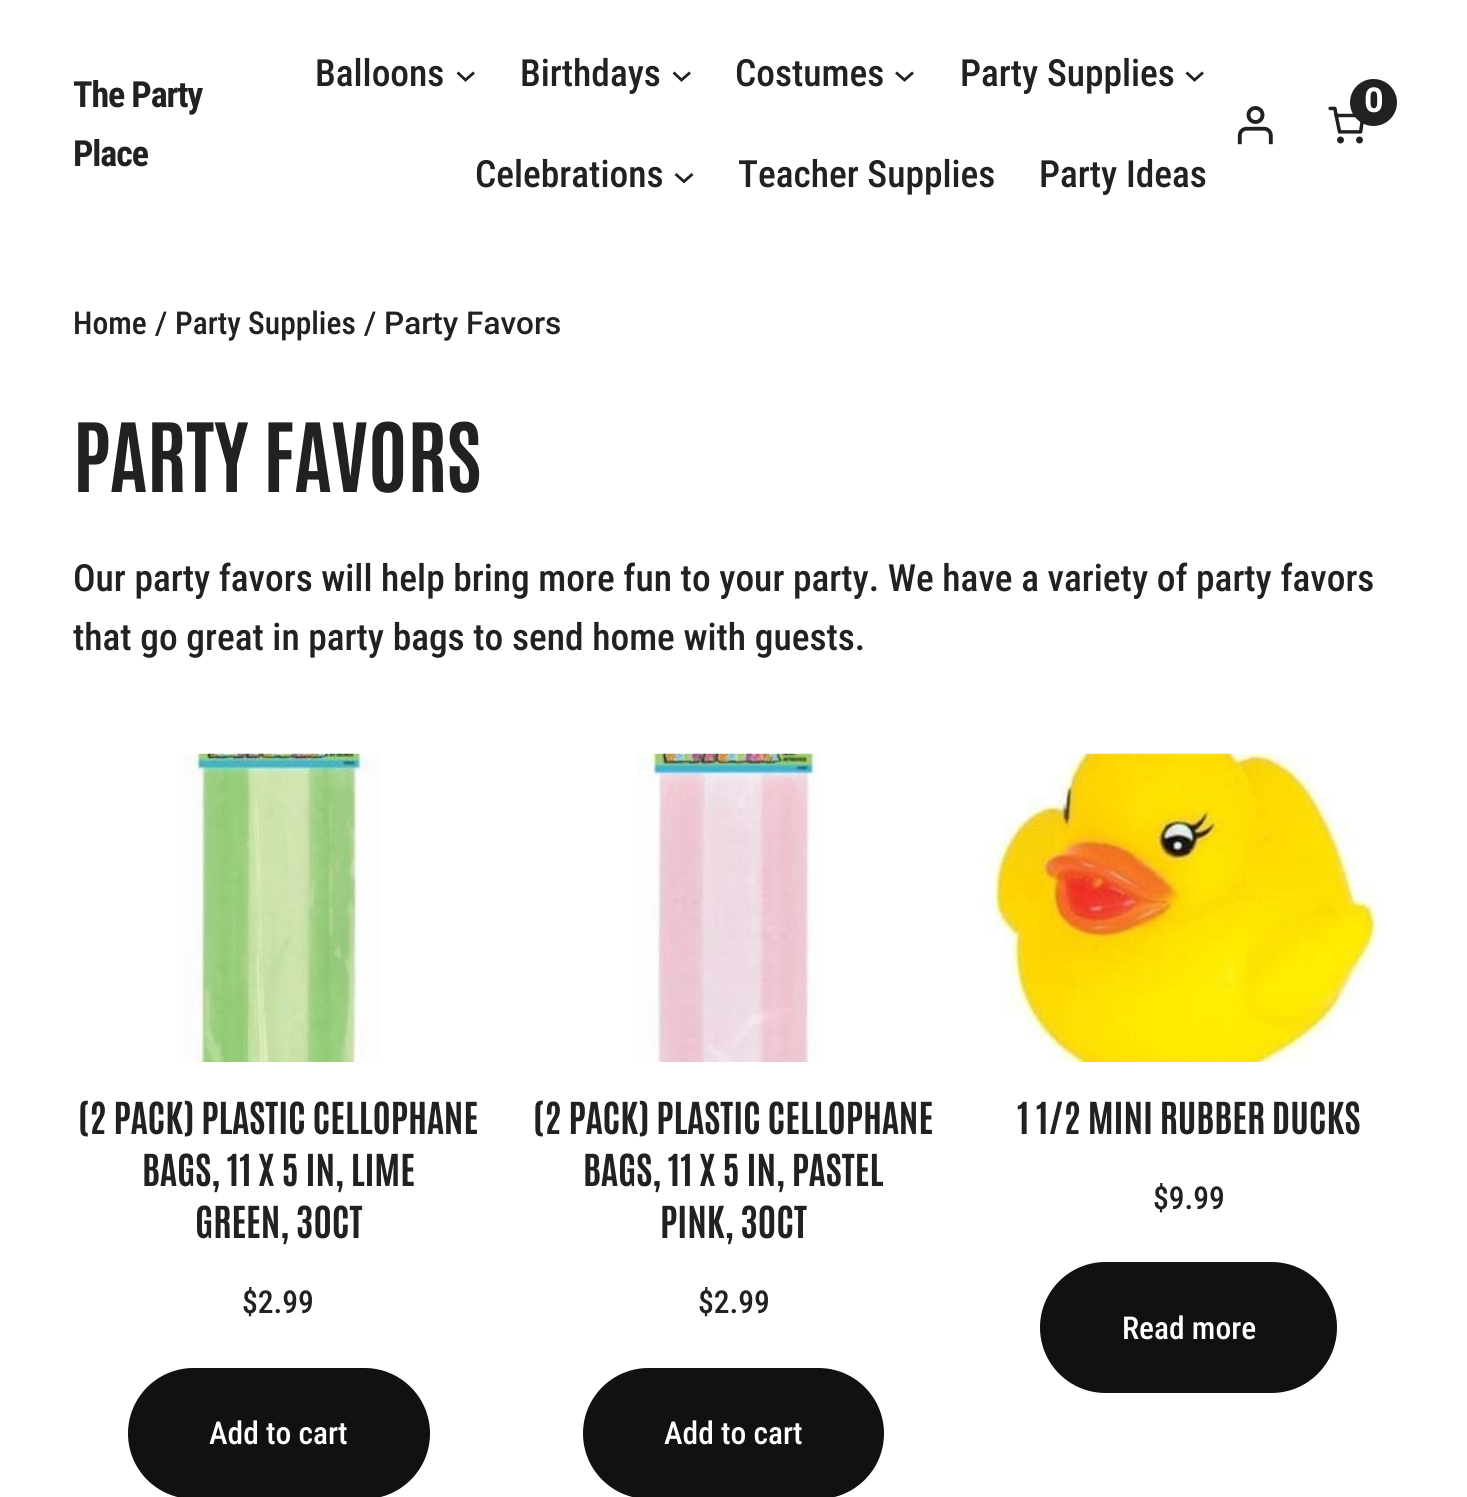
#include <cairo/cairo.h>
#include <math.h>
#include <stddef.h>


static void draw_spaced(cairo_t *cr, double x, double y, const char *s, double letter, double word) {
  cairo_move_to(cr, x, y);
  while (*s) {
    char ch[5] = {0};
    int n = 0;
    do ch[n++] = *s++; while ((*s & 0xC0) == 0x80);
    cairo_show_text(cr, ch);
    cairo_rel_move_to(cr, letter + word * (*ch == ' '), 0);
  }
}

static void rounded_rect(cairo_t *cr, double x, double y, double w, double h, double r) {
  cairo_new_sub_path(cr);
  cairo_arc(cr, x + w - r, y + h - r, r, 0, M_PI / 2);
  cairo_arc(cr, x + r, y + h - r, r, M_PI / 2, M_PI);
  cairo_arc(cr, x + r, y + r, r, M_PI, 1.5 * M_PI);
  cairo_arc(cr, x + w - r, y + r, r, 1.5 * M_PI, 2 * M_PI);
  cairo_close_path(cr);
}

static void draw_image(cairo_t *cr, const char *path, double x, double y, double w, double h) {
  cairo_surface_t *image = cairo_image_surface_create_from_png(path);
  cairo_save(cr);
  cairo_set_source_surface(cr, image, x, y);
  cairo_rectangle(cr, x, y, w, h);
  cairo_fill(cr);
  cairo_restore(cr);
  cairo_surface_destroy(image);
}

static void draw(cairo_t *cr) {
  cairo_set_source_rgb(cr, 1, 1, 1);
  cairo_paint(cr);
  cairo_new_path(cr);
  cairo_move_to(cr, 457.5, 72.5);
  cairo_line_to(cr, 465.5, 80);
  cairo_line_to(cr, 474, 72.5);
  cairo_set_source_rgb(cr, 33 / 255.0, 33 / 255.0, 33 / 255.0);
  cairo_set_line_width(cr, 2.8);
  cairo_stroke(cr);
  cairo_new_path(cr);
  cairo_move_to(cr, 673.5, 72.5);
  cairo_line_to(cr, 681.5, 80);
  cairo_line_to(cr, 690, 72.5);
  cairo_stroke(cr);
  cairo_new_path(cr);
  cairo_move_to(cr, 896, 72.5);
  cairo_line_to(cr, 904.5, 80);
  cairo_line_to(cr, 913, 72.5);
  cairo_stroke(cr);
  cairo_new_path(cr);
  cairo_move_to(cr, 1186.5, 72.5);
  cairo_line_to(cr, 1194.5, 80);
  cairo_line_to(cr, 1203, 72.5);
  cairo_stroke(cr);
  cairo_new_path(cr);
  cairo_move_to(cr, 675.5, 174);
  cairo_line_to(cr, 684, 181.5);
  cairo_line_to(cr, 692.5, 174);
  cairo_stroke(cr);
  draw_image(cr, "images/1.png", 1328, 106, 36, 38);
  cairo_arc(cr, 1373.5, 102.5, 23.5, 0, 2 * M_PI);
  cairo_fill(cr);
  draw_image(cr, "images/2.png", 1237, 106, 36, 39);
  draw_image(cr, "images/3.png", 183, 753, 198, 309);
  cairo_set_source_rgb(cr, 17 / 255.0, 17 / 255.0, 17 / 255.0);
  rounded_rect(cr, 128, 1368, 302, 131, 65.5);
  cairo_fill(cr);
  draw_image(cr, "images/4.png", 638, 753, 184, 309);
  rounded_rect(cr, 583, 1368, 301, 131, 65.5);
  cairo_fill(cr);
  draw_image(cr, "images/5.png", 983, 753, 395, 309);
  rounded_rect(cr, 1040, 1262, 297, 131, 65.5);
  cairo_fill(cr);
  cairo_select_font_face(cr, "Roboto Condensed", CAIRO_FONT_SLANT_NORMAL, CAIRO_FONT_WEIGHT_BOLD);
  cairo_set_font_size(cr, 36);
  cairo_set_source_rgb(cr, 33 / 255.0, 33 / 255.0, 33 / 255.0);
  draw_spaced(cr, 73, 107, "The Party", -1.1, 0);
  draw_spaced(cr, 73, 166, "Place", -1.1, 0);
  cairo_select_font_face(cr, "Roboto Condensed Medium", CAIRO_FONT_SLANT_NORMAL, CAIRO_FONT_WEIGHT_NORMAL);
  cairo_set_font_size(cr, 37.45);
  cairo_move_to(cr, 315, 86);
  cairo_show_text(cr, "Balloons");
  cairo_move_to(cr, 520, 86);
  cairo_show_text(cr, "Birthdays");
  cairo_move_to(cr, 735, 86);
  cairo_show_text(cr, "Costumes");
  cairo_move_to(cr, 960, 86);
  cairo_show_text(cr, "Party Supplies");
  cairo_move_to(cr, 475, 187);
  cairo_show_text(cr, "Celebrations");
  cairo_move_to(cr, 738, 187);
  cairo_show_text(cr, "Teacher Supplies");
  cairo_move_to(cr, 1039, 187);
  cairo_show_text(cr, "Party Ideas");
  cairo_select_font_face(cr, "Roboto", CAIRO_FONT_SLANT_NORMAL, CAIRO_FONT_WEIGHT_BOLD);
  cairo_set_font_size(cr, 33);
  cairo_set_source_rgb(cr, 1, 1, 1);
  cairo_move_to(cr, 1364, 112);
  cairo_show_text(cr, "0");
  cairo_select_font_face(cr, "Roboto Condensed Medium", CAIRO_FONT_SLANT_NORMAL, CAIRO_FONT_WEIGHT_NORMAL);
  cairo_set_font_size(cr, 31.5);
  cairo_set_source_rgb(cr, 33 / 255.0, 33 / 255.0, 33 / 255.0);
  cairo_move_to(cr, 73, 334);
  cairo_show_text(cr, "Home");
  cairo_select_font_face(cr, "Roboto Medium", CAIRO_FONT_SLANT_NORMAL, CAIRO_FONT_WEIGHT_NORMAL);
  cairo_move_to(cr, 155, 334);
  cairo_show_text(cr, "/");
  cairo_select_font_face(cr, "Roboto Condensed Medium", CAIRO_FONT_SLANT_NORMAL, CAIRO_FONT_WEIGHT_NORMAL);
  cairo_move_to(cr, 175, 334);
  cairo_show_text(cr, "Party Supplies");
  cairo_select_font_face(cr, "Roboto Medium", CAIRO_FONT_SLANT_NORMAL, CAIRO_FONT_WEIGHT_NORMAL);
  cairo_move_to(cr, 364, 334);
  cairo_show_text(cr, "/ Party Favors");
  cairo_select_font_face(cr, "Antonio", CAIRO_FONT_SLANT_NORMAL, CAIRO_FONT_WEIGHT_BOLD);
  cairo_set_font_size(cr, 81);
  cairo_move_to(cr, 73, 492);
  cairo_show_text(cr, "PARTY FAVORS");
  cairo_select_font_face(cr, "Roboto Condensed Medium", CAIRO_FONT_SLANT_NORMAL, CAIRO_FONT_WEIGHT_NORMAL);
  cairo_set_font_size(cr, 37.45);
  cairo_move_to(cr, 73, 591);
  cairo_show_text(cr, "Our party favors will help bring more fun to your party. We have a variety of party favors");
  cairo_move_to(cr, 73, 650);
  cairo_show_text(cr, "that go great in party bags to send home with guests.");
  cairo_select_font_face(cr, "Antonio", CAIRO_FONT_SLANT_NORMAL, CAIRO_FONT_WEIGHT_BOLD);
  cairo_move_to(cr, 78, 1134);
  cairo_show_text(cr, "(2 PACK) PLASTIC CELLOPHANE");
  cairo_move_to(cr, 142, 1186);
  cairo_show_text(cr, "BAGS, 11 X 5 IN, LIME");
  cairo_move_to(cr, 195, 1238);
  cairo_show_text(cr, "GREEN, 30CT");
  cairo_select_font_face(cr, "Roboto Condensed Medium", CAIRO_FONT_SLANT_NORMAL, CAIRO_FONT_WEIGHT_NORMAL);
  cairo_set_font_size(cr, 31.5);
  cairo_move_to(cr, 242, 1313);
  cairo_show_text(cr, "$2.99");
  cairo_set_source_rgb(cr, 1, 1, 1);
  cairo_move_to(cr, 209, 1444);
  cairo_show_text(cr, "Add to cart");
  cairo_select_font_face(cr, "Antonio", CAIRO_FONT_SLANT_NORMAL, CAIRO_FONT_WEIGHT_BOLD);
  cairo_set_font_size(cr, 37.45);
  cairo_set_source_rgb(cr, 33 / 255.0, 33 / 255.0, 33 / 255.0);
  cairo_move_to(cr, 533, 1134);
  cairo_show_text(cr, "(2 PACK) PLASTIC CELLOPHANE");
  cairo_move_to(cr, 583, 1186);
  cairo_show_text(cr, "BAGS, 11 X 5 IN, PASTEL");
  cairo_move_to(cr, 660, 1238);
  cairo_show_text(cr, "PINK, 30CT");
  cairo_select_font_face(cr, "Roboto Condensed Medium", CAIRO_FONT_SLANT_NORMAL, CAIRO_FONT_WEIGHT_NORMAL);
  cairo_set_font_size(cr, 31.5);
  cairo_move_to(cr, 698, 1313);
  cairo_show_text(cr, "$2.99");
  cairo_set_source_rgb(cr, 1, 1, 1);
  cairo_move_to(cr, 664, 1444);
  cairo_show_text(cr, "Add to cart");
  cairo_select_font_face(cr, "Antonio", CAIRO_FONT_SLANT_NORMAL, CAIRO_FONT_WEIGHT_BOLD);
  cairo_set_font_size(cr, 37.45);
  cairo_set_source_rgb(cr, 33 / 255.0, 33 / 255.0, 33 / 255.0);
  cairo_move_to(cr, 1017, 1134);
  cairo_show_text(cr, "1 1/2 MINI RUBBER DUCKS");
  cairo_select_font_face(cr, "Roboto Condensed Medium", CAIRO_FONT_SLANT_NORMAL, CAIRO_FONT_WEIGHT_NORMAL);
  cairo_set_font_size(cr, 31.5);
  cairo_move_to(cr, 1153, 1209);
  cairo_show_text(cr, "$9.99");
  cairo_set_source_rgb(cr, 1, 1, 1);
  cairo_move_to(cr, 1122, 1339);
  cairo_show_text(cr, "Read more");
}

int main(void) {
  cairo_surface_t *surface = cairo_image_surface_create(CAIRO_FORMAT_RGB24, 1467, 1497);
  cairo_t *cr = cairo_create(surface);
  cairo_font_options_t *options = cairo_font_options_create();
  cairo_font_options_set_hint_metrics(options, CAIRO_HINT_METRICS_OFF);
  cairo_font_options_set_hint_style(options, CAIRO_HINT_STYLE_NONE);
  cairo_set_font_options(cr, options);
  cairo_set_miter_limit(cr, 4);
  draw(cr);
  cairo_surface_write_to_png(surface, "out.png");
  cairo_font_options_destroy(options);
  cairo_destroy(cr);
  cairo_surface_destroy(surface);
  return 0;
}
